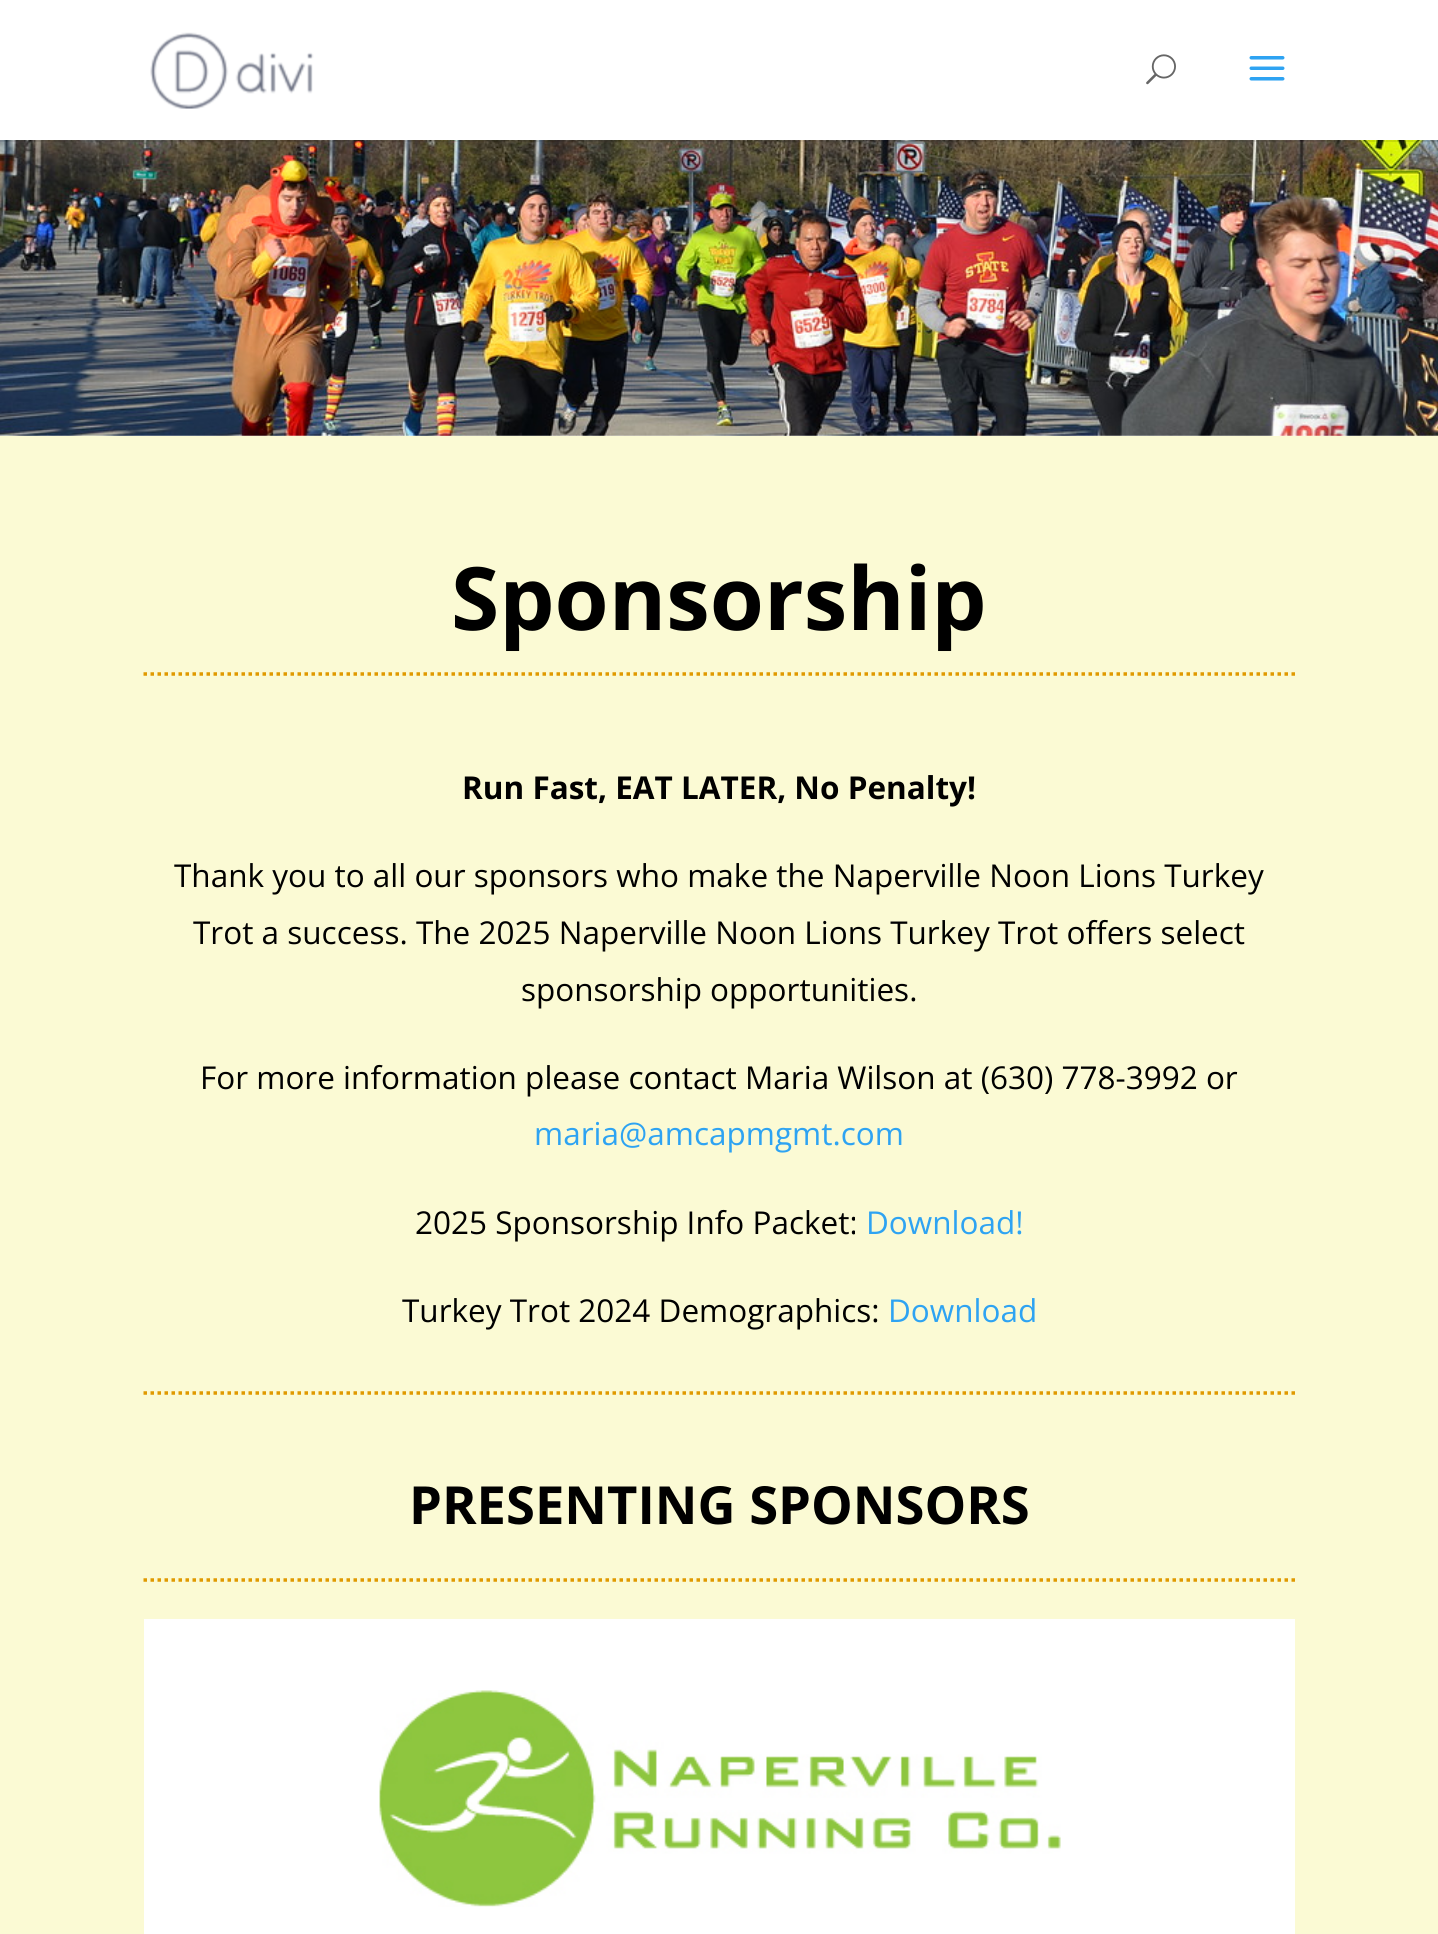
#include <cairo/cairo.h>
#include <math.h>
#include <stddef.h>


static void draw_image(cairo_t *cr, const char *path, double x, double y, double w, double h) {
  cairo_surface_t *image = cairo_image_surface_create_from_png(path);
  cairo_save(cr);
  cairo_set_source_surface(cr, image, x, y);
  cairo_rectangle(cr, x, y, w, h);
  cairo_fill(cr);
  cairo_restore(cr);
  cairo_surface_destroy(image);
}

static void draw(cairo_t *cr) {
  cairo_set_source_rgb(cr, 1, 1, 1);
  cairo_paint(cr);
  draw_image(cr, "images/4.png", 0, 140, 1438, 296);
  cairo_set_source_rgba(cr, 0, 0, 0, 0.1);
  cairo_new_path(cr);
  cairo_move_to(cr, 0, 140);
  cairo_line_to(cr, 0, 142);
  cairo_line_to(cr, 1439, 142);
  cairo_line_to(cr, 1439, 2);
  cairo_line_to(cr, 1438, 2);
  cairo_line_to(cr, 1438, 140);
  cairo_close_path(cr);
  cairo_fill(cr);
  draw_image(cr, "images/1.png", 150, 32, 164, 77);
  draw_image(cr, "images/2.png", 1146, 54, 30, 31);
  draw_image(cr, "images/3.png", 1249, 56, 36, 25);
  cairo_set_source_rgb(cr, 251 / 255.0, 250 / 255.0, 212 / 255.0);
  cairo_rectangle(cr, 0, 436, 1438, 1498);
  cairo_fill(cr);
  cairo_new_path(cr);
  cairo_move_to(cr, 143.5, 674);
  cairo_line_to(cr, 1295, 674);
  cairo_set_source_rgb(cr, 224 / 255.0, 153 / 255.0, 0);
  cairo_set_line_width(cr, 3.5);
  cairo_set_dash(cr, (double[]){3.5, 3.5}, 2, 0);
  cairo_stroke(cr);
  cairo_new_path(cr);
  cairo_move_to(cr, 143.5, 1393);
  cairo_line_to(cr, 1295, 1393);
  cairo_stroke(cr);
  cairo_new_path(cr);
  cairo_move_to(cr, 143.5, 1580);
  cairo_line_to(cr, 1295, 1580);
  cairo_stroke(cr);
  cairo_set_source_rgb(cr, 1, 1, 1);
  cairo_rectangle(cr, 144, 1619, 1151, 315);
  cairo_fill(cr);
  draw_image(cr, "images/5.png", 379, 1690, 682, 217);
  cairo_select_font_face(cr, "Open Sans", CAIRO_FONT_SLANT_NORMAL, CAIRO_FONT_WEIGHT_BOLD);
  cairo_set_font_size(cr, 87.5);
  cairo_set_source_rgb(cr, 0, 0, 0);
  cairo_move_to(cr, 451, 630);
  cairo_show_text(cr, "Sponsorship");
  cairo_set_font_size(cr, 31.5);
  cairo_move_to(cr, 462, 799);
  cairo_show_text(cr, "Run Fast, EAT LATER, No Penalty!");
  cairo_select_font_face(cr, "Open Sans", CAIRO_FONT_SLANT_NORMAL, CAIRO_FONT_WEIGHT_NORMAL);
  cairo_move_to(cr, 174, 887);
  cairo_show_text(cr, "Thank you to all our sponsors who make the Naperville Noon Lions Turkey");
  cairo_move_to(cr, 193, 944);
  cairo_show_text(cr, "Trot a success. The 2025 Naperville Noon Lions Turkey Trot offers select");
  cairo_move_to(cr, 521, 1001);
  cairo_show_text(cr, "sponsorship opportunities.");
  cairo_move_to(cr, 200, 1089);
  cairo_show_text(cr, "For more information please contact Maria Wilson at (630) 778-3992 or");
  cairo_set_source_rgb(cr, 46 / 255.0, 163 / 255.0, 242 / 255.0);
  cairo_move_to(cr, 534, 1145);
  cairo_show_text(cr, "maria@amcapmgmt.com");
  cairo_set_source_rgb(cr, 0, 0, 0);
  cairo_move_to(cr, 415, 1234);
  cairo_show_text(cr, "2025 Sponsorship Info Packet:");
  cairo_set_source_rgb(cr, 46 / 255.0, 163 / 255.0, 242 / 255.0);
  cairo_move_to(cr, 866, 1234);
  cairo_show_text(cr, "Download!");
  cairo_set_source_rgb(cr, 0, 0, 0);
  cairo_move_to(cr, 402, 1322);
  cairo_show_text(cr, "Turkey Trot 2024 Demographics:");
  cairo_set_source_rgb(cr, 46 / 255.0, 163 / 255.0, 242 / 255.0);
  cairo_move_to(cr, 888, 1322);
  cairo_show_text(cr, "Download");
  cairo_select_font_face(cr, "Open Sans", CAIRO_FONT_SLANT_NORMAL, CAIRO_FONT_WEIGHT_BOLD);
  cairo_set_font_size(cr, 52.5);
  cairo_set_source_rgb(cr, 0, 0, 0);
  cairo_move_to(cr, 409, 1524);
  cairo_show_text(cr, "PRESENTING SPONSORS");
}

int main(void) {
  cairo_surface_t *surface = cairo_image_surface_create(CAIRO_FORMAT_RGB24, 1438, 1934);
  cairo_t *cr = cairo_create(surface);
  cairo_font_options_t *options = cairo_font_options_create();
  cairo_font_options_set_hint_metrics(options, CAIRO_HINT_METRICS_OFF);
  cairo_font_options_set_hint_style(options, CAIRO_HINT_STYLE_NONE);
  cairo_set_font_options(cr, options);
  cairo_set_miter_limit(cr, 4);
  draw(cr);
  cairo_surface_write_to_png(surface, "out.png");
  cairo_font_options_destroy(options);
  cairo_destroy(cr);
  cairo_surface_destroy(surface);
  return 0;
}
